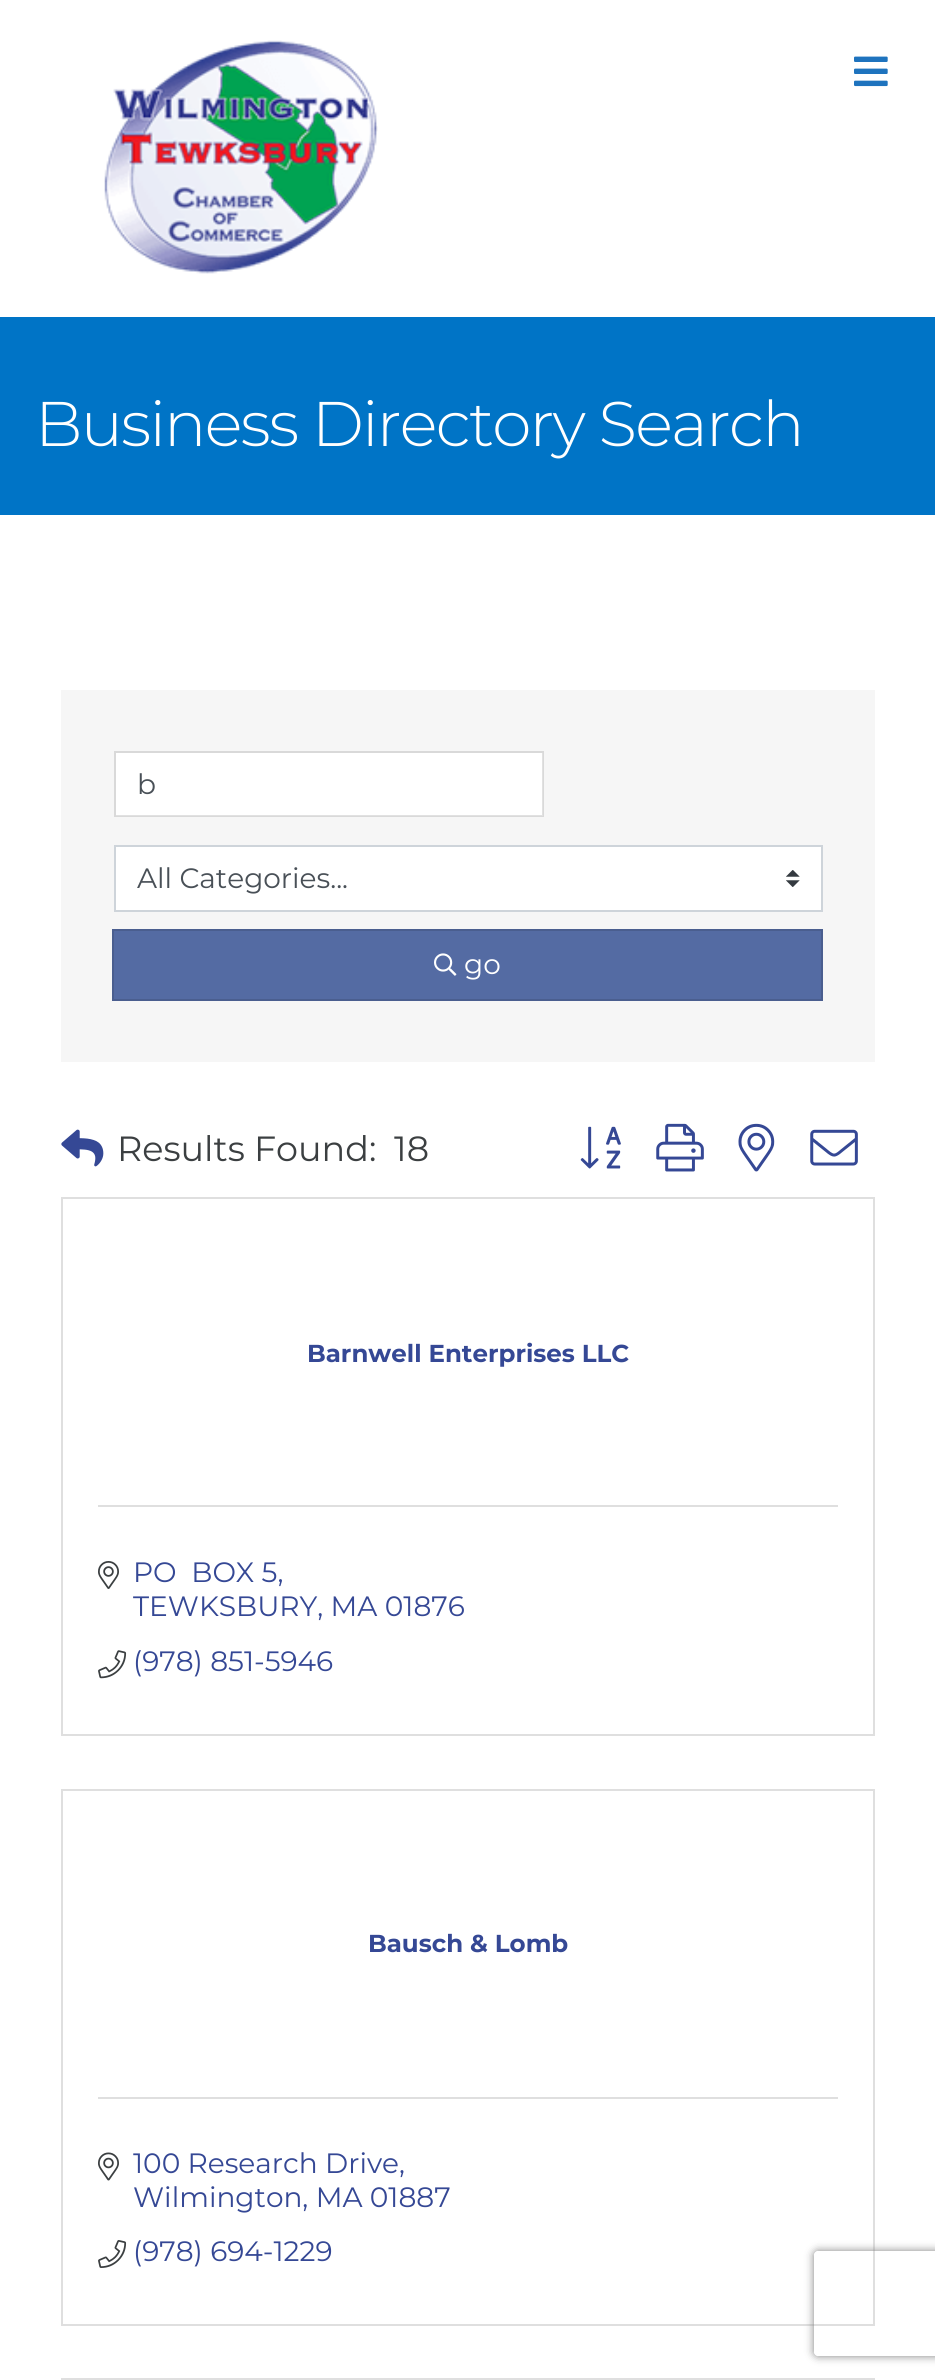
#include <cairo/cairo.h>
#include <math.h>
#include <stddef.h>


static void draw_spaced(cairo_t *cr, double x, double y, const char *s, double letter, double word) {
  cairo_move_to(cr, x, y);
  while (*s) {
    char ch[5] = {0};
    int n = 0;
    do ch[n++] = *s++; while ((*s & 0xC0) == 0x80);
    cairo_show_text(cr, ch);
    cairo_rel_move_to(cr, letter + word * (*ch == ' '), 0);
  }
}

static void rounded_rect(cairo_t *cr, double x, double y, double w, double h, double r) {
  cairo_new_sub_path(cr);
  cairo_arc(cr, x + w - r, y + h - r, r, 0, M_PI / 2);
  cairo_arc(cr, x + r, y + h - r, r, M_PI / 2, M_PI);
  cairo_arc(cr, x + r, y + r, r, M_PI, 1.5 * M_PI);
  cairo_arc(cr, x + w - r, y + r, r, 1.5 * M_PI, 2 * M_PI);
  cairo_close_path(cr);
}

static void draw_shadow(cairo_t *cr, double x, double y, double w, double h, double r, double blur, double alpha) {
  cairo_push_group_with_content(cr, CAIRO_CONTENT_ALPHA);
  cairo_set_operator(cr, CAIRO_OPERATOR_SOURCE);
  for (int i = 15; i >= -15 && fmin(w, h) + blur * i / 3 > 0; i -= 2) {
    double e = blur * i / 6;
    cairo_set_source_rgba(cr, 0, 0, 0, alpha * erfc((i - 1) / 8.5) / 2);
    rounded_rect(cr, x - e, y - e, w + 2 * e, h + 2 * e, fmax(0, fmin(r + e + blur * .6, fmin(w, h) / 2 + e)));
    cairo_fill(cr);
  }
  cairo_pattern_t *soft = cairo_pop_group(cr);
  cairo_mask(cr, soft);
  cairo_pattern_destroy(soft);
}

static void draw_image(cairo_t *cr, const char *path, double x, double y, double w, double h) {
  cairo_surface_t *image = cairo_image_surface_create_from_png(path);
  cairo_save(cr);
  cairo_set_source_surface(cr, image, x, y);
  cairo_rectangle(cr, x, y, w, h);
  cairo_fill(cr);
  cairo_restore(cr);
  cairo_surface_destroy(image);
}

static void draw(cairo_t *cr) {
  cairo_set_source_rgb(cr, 1, 1, 1);
  cairo_paint(cr);
  draw_image(cr, "images/1.png", 104, 40, 274, 234);
  draw_image(cr, "images/2.png", 854, 56, 34, 31);
  cairo_set_source_rgb(cr, 0, 116 / 255.0, 198 / 255.0);
  cairo_rectangle(cr, 0, 317, 935, 198);
  cairo_fill(cr);
  cairo_set_source_rgb(cr, 246 / 255.0, 246 / 255.0, 246 / 255.0);
  cairo_rectangle(cr, 61, 690, 814, 372);
  cairo_fill(cr);
  cairo_set_source_rgb(cr, 1, 1, 1);
  cairo_rectangle(cr, 116, 753, 427, 63);
  cairo_fill(cr);
  cairo_rectangle(cr, 115, 752, 428, 64);
  cairo_set_source_rgba(cr, 0, 0, 0, 0.12);
  cairo_stroke(cr);
  cairo_set_source_rgb(cr, 1, 1, 1);
  cairo_rectangle(cr, 116, 847, 705, 63);
  cairo_fill(cr);
  draw_image(cr, "images/3.png", 786, 870, 14, 17);
  cairo_rectangle(cr, 115, 846, 707, 65);
  cairo_set_source_rgb(cr, 206 / 255.0, 212 / 255.0, 218 / 255.0);
  cairo_stroke(cr);
  cairo_set_source_rgb(cr, 84 / 255.0, 107 / 255.0, 163 / 255.0);
  cairo_rectangle(cr, 113, 930, 709, 70);
  cairo_fill_preserve(cr);
  cairo_set_source_rgb(cr, 74 / 255.0, 94 / 255.0, 143 / 255.0);
  cairo_stroke(cr);
  draw_image(cr, "images/4.png", 434, 953, 23, 23);
  draw_image(cr, "images/5.png", 61, 1129, 43, 38);
  draw_image(cr, "images/6.png", 580, 1126, 41, 43);
  draw_image(cr, "images/7.png", 656, 1123, 48, 49);
  draw_image(cr, "images/8.png", 738, 1123, 37, 49);
  draw_image(cr, "images/9.png", 810, 1129, 48, 37);
  cairo_rectangle(cr, 62, 1198, 812, 537);
  cairo_set_source_rgb(cr, 223 / 255.0, 223 / 255.0, 223 / 255.0);
  cairo_stroke(cr);
  cairo_rectangle(cr, 98, 1505, 740, 2);
  cairo_fill(cr);
  draw_image(cr, "images/10.png", 98, 1561, 21, 28);
  draw_image(cr, "images/11.png", 98, 1650, 29, 29);
  cairo_rectangle(cr, 62, 1790, 812, 535);
  cairo_stroke(cr);
  cairo_rectangle(cr, 98, 2097, 740, 2);
  cairo_fill(cr);
  draw_image(cr, "images/12.png", 98, 2152, 21, 29);
  draw_image(cr, "images/13.png", 98, 2240, 29, 28);
  cairo_rectangle(cr, 62, 2379, 812, 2);
  cairo_stroke(cr);
  cairo_save(cr);
  cairo_set_fill_rule(cr, CAIRO_FILL_RULE_EVEN_ODD);
  cairo_new_path(cr);
  cairo_move_to(cr, 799, 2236);
  cairo_line_to(cr, 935, 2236);
  cairo_line_to(cr, 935, 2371);
  cairo_line_to(cr, 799, 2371);
  cairo_close_path(cr);
  cairo_move_to(cr, 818, 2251);
  cairo_line_to(cr, 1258, 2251);
  cairo_curve_to(cr, 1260, 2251, 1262, 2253, 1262, 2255);
  cairo_line_to(cr, 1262, 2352);
  cairo_curve_to(cr, 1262, 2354, 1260, 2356, 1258, 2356);
  cairo_line_to(cr, 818, 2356);
  cairo_curve_to(cr, 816, 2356, 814, 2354, 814, 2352);
  cairo_line_to(cr, 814, 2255);
  cairo_curve_to(cr, 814, 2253, 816, 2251, 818, 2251);
  cairo_close_path(cr);
  cairo_clip(cr);
  cairo_set_source_rgb(cr, 128 / 255.0, 128 / 255.0, 128 / 255.0);
  draw_shadow(cr, 814, 2251, 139, 105, 4, 4.5, 1);
  cairo_restore(cr);
  cairo_select_font_face(cr, "Montserrat Light", CAIRO_FONT_SLANT_NORMAL, CAIRO_FONT_WEIGHT_NORMAL);
  cairo_set_font_size(cr, 63);
  cairo_set_source_rgb(cr, 1, 1, 1);
  draw_spaced(cr, 35, 446, "Business Directory Search", -1.75, 0);
  cairo_select_font_face(cr, "Montserrat", CAIRO_FONT_SLANT_NORMAL, CAIRO_FONT_WEIGHT_NORMAL);
  cairo_set_font_size(cr, 28);
  cairo_set_source_rgb(cr, 73 / 255.0, 80 / 255.0, 87 / 255.0);
  cairo_move_to(cr, 137, 794);
  cairo_show_text(cr, "b");
  cairo_move_to(cr, 137, 888);
  cairo_show_text(cr, "All Categories...");
  cairo_set_source_rgb(cr, 1, 1, 1);
  cairo_move_to(cr, 464, 974);
  cairo_show_text(cr, "go");
  cairo_set_font_size(cr, 35);
  cairo_set_source_rgb(cr, 59 / 255.0, 63 / 255.0, 65 / 255.0);
  cairo_move_to(cr, 117, 1161);
  cairo_show_text(cr, "Results Found:");
  cairo_move_to(cr, 394, 1161);
  cairo_show_text(cr, "18");
  cairo_select_font_face(cr, "Montserrat", CAIRO_FONT_SLANT_NORMAL, CAIRO_FONT_WEIGHT_BOLD);
  cairo_set_font_size(cr, 24.5);
  cairo_set_source_rgb(cr, 53 / 255.0, 72 / 255.0, 149 / 255.0);
  cairo_move_to(cr, 307, 1362);
  cairo_show_text(cr, "Barnwell Enterprises LLC");
  cairo_select_font_face(cr, "Montserrat", CAIRO_FONT_SLANT_NORMAL, CAIRO_FONT_WEIGHT_NORMAL);
  cairo_set_font_size(cr, 28);
  cairo_move_to(cr, 133, 1582);
  cairo_show_text(cr, "PO  BOX 5,");
  cairo_move_to(cr, 133, 1616);
  cairo_show_text(cr, "TEWKSBURY, MA 01876");
  cairo_move_to(cr, 133, 1671);
  cairo_show_text(cr, "(978) 851-5946");
  cairo_select_font_face(cr, "Montserrat", CAIRO_FONT_SLANT_NORMAL, CAIRO_FONT_WEIGHT_BOLD);
  cairo_set_font_size(cr, 24.5);
  cairo_move_to(cr, 368, 1952);
  cairo_show_text(cr, "Bausch & Lomb");
  cairo_select_font_face(cr, "Montserrat", CAIRO_FONT_SLANT_NORMAL, CAIRO_FONT_WEIGHT_NORMAL);
  cairo_set_font_size(cr, 28);
  cairo_move_to(cr, 133, 2173);
  cairo_show_text(cr, "100 Research Drive,");
  cairo_move_to(cr, 133, 2207);
  cairo_show_text(cr, "Wilmington, MA 01887");
  cairo_move_to(cr, 133, 2261);
  cairo_show_text(cr, "(978) 694-1229");
}

int main(void) {
  cairo_surface_t *surface = cairo_image_surface_create(CAIRO_FORMAT_RGB24, 935, 2380);
  cairo_t *cr = cairo_create(surface);
  cairo_font_options_t *options = cairo_font_options_create();
  cairo_font_options_set_hint_metrics(options, CAIRO_HINT_METRICS_OFF);
  cairo_font_options_set_hint_style(options, CAIRO_HINT_STYLE_NONE);
  cairo_set_font_options(cr, options);
  cairo_set_miter_limit(cr, 4);
  draw(cr);
  cairo_surface_write_to_png(surface, "out.png");
  cairo_font_options_destroy(options);
  cairo_destroy(cr);
  cairo_surface_destroy(surface);
  return 0;
}
